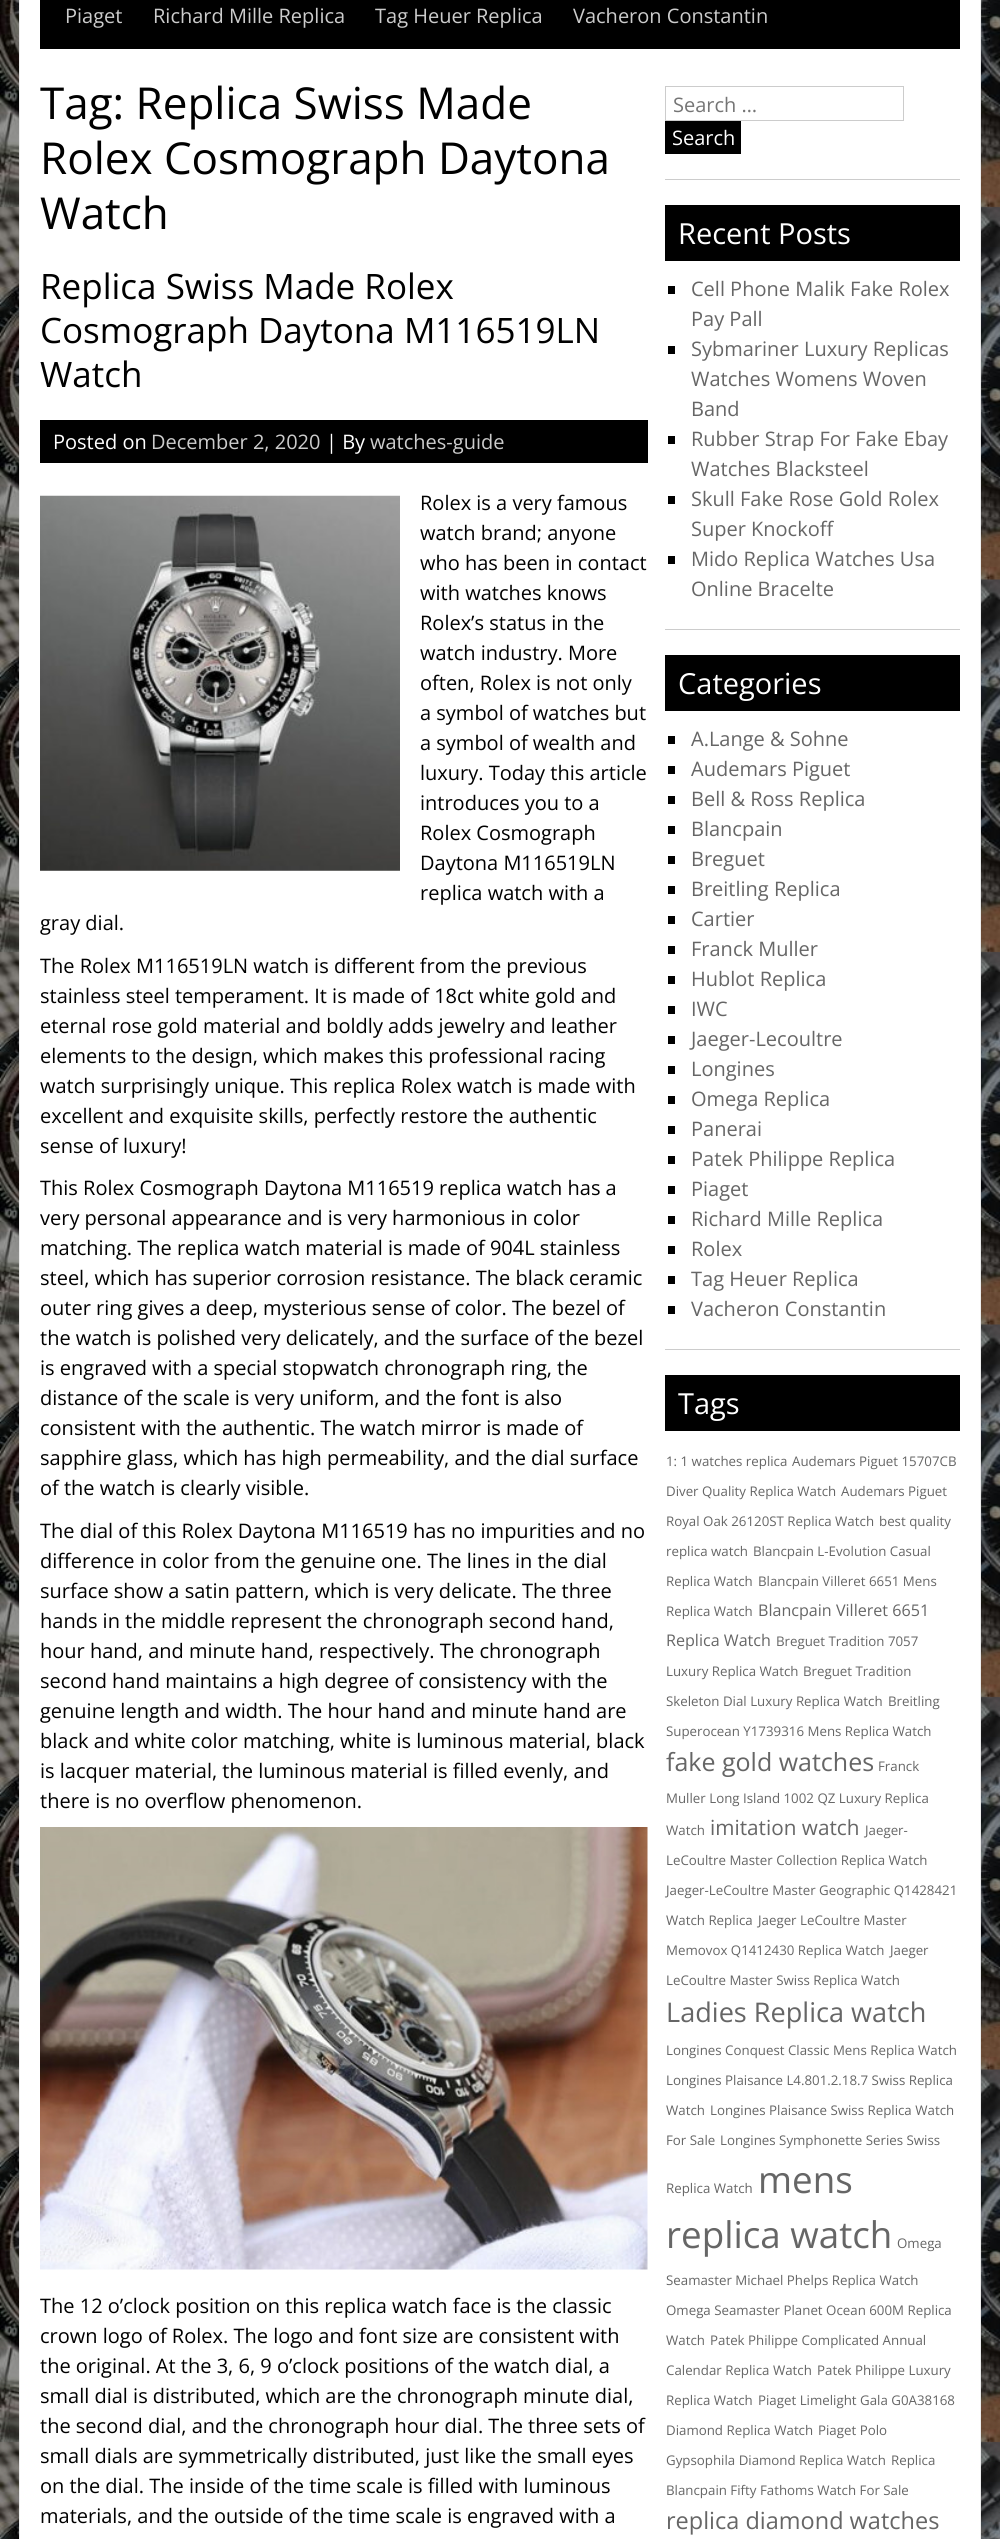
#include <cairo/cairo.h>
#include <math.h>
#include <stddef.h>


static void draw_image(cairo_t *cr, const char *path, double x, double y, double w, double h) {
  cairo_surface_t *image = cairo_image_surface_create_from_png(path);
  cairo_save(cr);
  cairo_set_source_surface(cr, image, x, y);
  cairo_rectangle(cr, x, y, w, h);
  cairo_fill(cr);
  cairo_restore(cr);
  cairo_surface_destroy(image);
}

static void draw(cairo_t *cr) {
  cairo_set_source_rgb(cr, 1, 1, 1);
  cairo_paint(cr);
  draw_image(cr, "images/1.png", 0, 0, 1000, 2539);
  cairo_set_source_rgb(cr, 1, 1, 1);
  cairo_rectangle(cr, 19.5, -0.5, 961, 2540);
  cairo_fill_preserve(cr);
  cairo_set_source_rgb(cr, 238 / 255.0, 238 / 255.0, 238 / 255.0);
  cairo_set_line_width(cr, 1);
  cairo_stroke(cr);
  cairo_set_source_rgb(cr, 0, 0, 0);
  cairo_rectangle(cr, 40, 0, 920, 49);
  cairo_fill(cr);
  cairo_rectangle(cr, 40, 420, 608, 43);
  cairo_fill(cr);
  draw_image(cr, "images/2.png", 40, 495, 360, 376);
  draw_image(cr, "images/3.png", 40, 1827, 608, 443);
  cairo_set_source_rgb(cr, 204 / 255.0, 204 / 255.0, 204 / 255.0);
  cairo_rectangle(cr, 665, 179, 295, 1);
  cairo_fill(cr);
  cairo_rectangle(cr, 665.5, 86.5, 238, 34);
  cairo_stroke(cr);
  cairo_set_source_rgb(cr, 0, 0, 0);
  cairo_rectangle(cr, 665, 121, 76, 33);
  cairo_fill(cr);
  cairo_set_source_rgb(cr, 204 / 255.0, 204 / 255.0, 204 / 255.0);
  cairo_rectangle(cr, 665, 629, 295, 1);
  cairo_fill(cr);
  cairo_set_source_rgb(cr, 0, 0, 0);
  cairo_rectangle(cr, 665, 205, 295, 56);
  cairo_fill(cr);
  cairo_rectangle(cr, 668, 286, 7, 8);
  cairo_fill(cr);
  cairo_rectangle(cr, 668, 346, 7, 8);
  cairo_fill(cr);
  cairo_rectangle(cr, 668, 436, 7, 8);
  cairo_fill(cr);
  cairo_rectangle(cr, 668, 496, 7, 8);
  cairo_fill(cr);
  cairo_rectangle(cr, 668, 556, 7, 8);
  cairo_fill(cr);
  cairo_set_source_rgb(cr, 204 / 255.0, 204 / 255.0, 204 / 255.0);
  cairo_rectangle(cr, 665, 1349, 295, 1);
  cairo_fill(cr);
  cairo_set_source_rgb(cr, 0, 0, 0);
  cairo_rectangle(cr, 665, 655, 295, 56);
  cairo_fill(cr);
  cairo_rectangle(cr, 668, 736, 7, 8);
  cairo_fill(cr);
  cairo_rectangle(cr, 668, 766, 7, 8);
  cairo_fill(cr);
  cairo_rectangle(cr, 668, 796, 7, 8);
  cairo_fill(cr);
  cairo_rectangle(cr, 668, 826, 7, 8);
  cairo_fill(cr);
  cairo_rectangle(cr, 668, 856, 7, 8);
  cairo_fill(cr);
  cairo_rectangle(cr, 668, 886, 7, 8);
  cairo_fill(cr);
  cairo_rectangle(cr, 668, 916, 7, 8);
  cairo_fill(cr);
  cairo_rectangle(cr, 668, 946, 7, 8);
  cairo_fill(cr);
  cairo_rectangle(cr, 668, 976, 7, 8);
  cairo_fill(cr);
  cairo_rectangle(cr, 668, 1006, 7, 8);
  cairo_fill(cr);
  cairo_rectangle(cr, 668, 1036, 7, 8);
  cairo_fill(cr);
  cairo_rectangle(cr, 668, 1066, 7, 8);
  cairo_fill(cr);
  cairo_rectangle(cr, 668, 1096, 7, 8);
  cairo_fill(cr);
  cairo_rectangle(cr, 668, 1126, 7, 8);
  cairo_fill(cr);
  cairo_rectangle(cr, 668, 1156, 7, 8);
  cairo_fill(cr);
  cairo_rectangle(cr, 668, 1186, 7, 8);
  cairo_fill(cr);
  cairo_rectangle(cr, 668, 1216, 7, 8);
  cairo_fill(cr);
  cairo_rectangle(cr, 668, 1246, 7, 8);
  cairo_fill(cr);
  cairo_rectangle(cr, 668, 1276, 7, 8);
  cairo_fill(cr);
  cairo_rectangle(cr, 668, 1306, 7, 8);
  cairo_fill(cr);
  cairo_rectangle(cr, 665, 1375, 295, 56);
  cairo_fill(cr);
  cairo_select_font_face(cr, "Open Sans", CAIRO_FONT_SLANT_NORMAL, CAIRO_FONT_WEIGHT_NORMAL);
  cairo_set_font_size(cr, 20);
  cairo_set_source_rgb(cr, 204 / 255.0, 204 / 255.0, 204 / 255.0);
  cairo_move_to(cr, 65, 23);
  cairo_show_text(cr, "Piaget");
  cairo_move_to(cr, 153, 23);
  cairo_show_text(cr, "Richard Mille Replica");
  cairo_move_to(cr, 375, 23);
  cairo_show_text(cr, "Tag Heuer Replica");
  cairo_move_to(cr, 573, 23);
  cairo_show_text(cr, "Vacheron Constantin");
  cairo_set_font_size(cr, 44);
  cairo_set_source_rgb(cr, 0, 0, 0);
  cairo_move_to(cr, 40, 119);
  cairo_show_text(cr, "Tag: Replica Swiss Made");
  cairo_move_to(cr, 40, 174);
  cairo_show_text(cr, "Rolex Cosmograph Daytona");
  cairo_move_to(cr, 40, 229);
  cairo_show_text(cr, "Watch");
  cairo_set_font_size(cr, 35);
  cairo_move_to(cr, 40, 299);
  cairo_show_text(cr, "Replica Swiss Made Rolex");
  cairo_move_to(cr, 40, 343);
  cairo_show_text(cr, "Cosmograph Daytona M116519LN");
  cairo_move_to(cr, 40, 387);
  cairo_show_text(cr, "Watch");
  cairo_set_font_size(cr, 20);
  cairo_set_source_rgb(cr, 1, 1, 1);
  cairo_move_to(cr, 53, 449);
  cairo_show_text(cr, "Posted on");
  cairo_set_source_rgb(cr, 204 / 255.0, 204 / 255.0, 204 / 255.0);
  cairo_move_to(cr, 151, 449);
  cairo_show_text(cr, "December 2, 2020");
  cairo_set_source_rgb(cr, 1, 1, 1);
  cairo_move_to(cr, 326, 449);
  cairo_show_text(cr, "| By");
  cairo_set_source_rgb(cr, 204 / 255.0, 204 / 255.0, 204 / 255.0);
  cairo_move_to(cr, 370, 449);
  cairo_show_text(cr, "watches-guide");
  cairo_set_source_rgb(cr, 0, 0, 0);
  cairo_move_to(cr, 420, 510);
  cairo_show_text(cr, "Rolex is a very famous");
  cairo_move_to(cr, 420, 540);
  cairo_show_text(cr, "watch brand; anyone");
  cairo_move_to(cr, 420, 570);
  cairo_show_text(cr, "who has been in contact");
  cairo_move_to(cr, 420, 600);
  cairo_show_text(cr, "with watches knows");
  cairo_move_to(cr, 420, 630);
  cairo_show_text(cr, "Rolex’s status in the");
  cairo_move_to(cr, 420, 660);
  cairo_show_text(cr, "watch industry. More");
  cairo_move_to(cr, 420, 690);
  cairo_show_text(cr, "often, Rolex is not only");
  cairo_move_to(cr, 420, 720);
  cairo_show_text(cr, "a symbol of watches but");
  cairo_move_to(cr, 420, 750);
  cairo_show_text(cr, "a symbol of wealth and");
  cairo_move_to(cr, 420, 780);
  cairo_show_text(cr, "luxury. Today this article");
  cairo_move_to(cr, 420, 810);
  cairo_show_text(cr, "introduces you to a");
  cairo_move_to(cr, 420, 840);
  cairo_show_text(cr, "Rolex Cosmograph");
  cairo_move_to(cr, 420, 870);
  cairo_show_text(cr, "Daytona M116519LN");
  cairo_move_to(cr, 420, 900);
  cairo_show_text(cr, "replica watch with a");
  cairo_move_to(cr, 40, 930);
  cairo_show_text(cr, "gray dial.");
  cairo_move_to(cr, 40, 973);
  cairo_show_text(cr, "The Rolex M116519LN watch is different from the previous");
  cairo_move_to(cr, 40, 1003);
  cairo_show_text(cr, "stainless steel temperament. It is made of 18ct white gold and");
  cairo_move_to(cr, 40, 1033);
  cairo_show_text(cr, "eternal rose gold material and boldly adds jewelry and leather");
  cairo_move_to(cr, 40, 1063);
  cairo_show_text(cr, "elements to the design, which makes this professional racing");
  cairo_move_to(cr, 40, 1093);
  cairo_show_text(cr, "watch surprisingly unique. This replica Rolex watch is made with");
  cairo_move_to(cr, 40, 1123);
  cairo_show_text(cr, "excellent and exquisite skills, perfectly restore the authentic");
  cairo_move_to(cr, 40, 1153);
  cairo_show_text(cr, "sense of luxury!");
  cairo_move_to(cr, 40, 1195);
  cairo_show_text(cr, "This Rolex Cosmograph Daytona M116519 replica watch has a");
  cairo_move_to(cr, 40, 1225);
  cairo_show_text(cr, "very personal appearance and is very harmonious in color");
  cairo_move_to(cr, 40, 1255);
  cairo_show_text(cr, "matching. The replica watch material is made of 904L stainless");
  cairo_move_to(cr, 40, 1285);
  cairo_show_text(cr, "steel, which has superior corrosion resistance. The black ceramic");
  cairo_move_to(cr, 40, 1315);
  cairo_show_text(cr, "outer ring gives a deep, mysterious sense of color. The bezel of");
  cairo_move_to(cr, 40, 1345);
  cairo_show_text(cr, "the watch is polished very delicately, and the surface of the bezel");
  cairo_move_to(cr, 40, 1375);
  cairo_show_text(cr, "is engraved with a special stopwatch chronograph ring, the");
  cairo_move_to(cr, 40, 1405);
  cairo_show_text(cr, "distance of the scale is very uniform, and the font is also");
  cairo_move_to(cr, 40, 1435);
  cairo_show_text(cr, "consistent with the authentic. The watch mirror is made of");
  cairo_move_to(cr, 40, 1465);
  cairo_show_text(cr, "sapphire glass, which has high permeability, and the dial surface");
  cairo_move_to(cr, 40, 1495);
  cairo_show_text(cr, "of the watch is clearly visible.");
  cairo_move_to(cr, 40, 1538);
  cairo_show_text(cr, "The dial of this Rolex Daytona M116519 has no impurities and no");
  cairo_move_to(cr, 40, 1568);
  cairo_show_text(cr, "difference in color from the genuine one. The lines in the dial");
  cairo_move_to(cr, 40, 1598);
  cairo_show_text(cr, "surface show a satin pattern, which is very delicate. The three");
  cairo_move_to(cr, 40, 1628);
  cairo_show_text(cr, "hands in the middle represent the chronograph second hand,");
  cairo_move_to(cr, 40, 1658);
  cairo_show_text(cr, "hour hand, and minute hand, respectively. The chronograph");
  cairo_move_to(cr, 40, 1688);
  cairo_show_text(cr, "second hand maintains a high degree of consistency with the");
  cairo_move_to(cr, 40, 1718);
  cairo_show_text(cr, "genuine length and width. The hour hand and minute hand are");
  cairo_move_to(cr, 40, 1748);
  cairo_show_text(cr, "black and white color matching, white is luminous material, black");
  cairo_move_to(cr, 40, 1778);
  cairo_show_text(cr, "is lacquer material, the luminous material is filled evenly, and");
  cairo_move_to(cr, 40, 1808);
  cairo_show_text(cr, "there is no overflow phenomenon.");
  cairo_move_to(cr, 40, 2313);
  cairo_show_text(cr, "The 12 o’clock position on this replica watch face is the classic");
  cairo_move_to(cr, 40, 2343);
  cairo_show_text(cr, "crown logo of Rolex. The logo and font size are consistent with");
  cairo_move_to(cr, 40, 2373);
  cairo_show_text(cr, "the original. At the 3, 6, 9 o’clock positions of the watch dial, a");
  cairo_move_to(cr, 40, 2403);
  cairo_show_text(cr, "small dial is distributed, which are the chronograph minute dial,");
  cairo_move_to(cr, 40, 2433);
  cairo_show_text(cr, "the second dial, and the chronograph hour dial. The three sets of");
  cairo_move_to(cr, 40, 2463);
  cairo_show_text(cr, "small dials are symmetrically distributed, just like the small eyes");
  cairo_move_to(cr, 40, 2493);
  cairo_show_text(cr, "on the dial. The inside of the time scale is filled with luminous");
  cairo_move_to(cr, 40, 2523);
  cairo_show_text(cr, "materials, and the outside of the time scale is engraved with a");
  cairo_set_source_rgb(cr, 117 / 255.0, 117 / 255.0, 117 / 255.0);
  cairo_move_to(cr, 673, 112);
  cairo_show_text(cr, "Search …");
  cairo_set_source_rgb(cr, 1, 1, 1);
  cairo_move_to(cr, 672, 145);
  cairo_show_text(cr, "Search");
  cairo_set_font_size(cr, 29);
  cairo_move_to(cr, 678, 244);
  cairo_show_text(cr, "Recent Posts");
  cairo_set_font_size(cr, 20);
  cairo_set_source_rgb(cr, 102 / 255.0, 102 / 255.0, 102 / 255.0);
  cairo_move_to(cr, 691, 296);
  cairo_show_text(cr, "Cell Phone Malik Fake Rolex");
  cairo_move_to(cr, 691, 326);
  cairo_show_text(cr, "Pay Pall");
  cairo_move_to(cr, 691, 356);
  cairo_show_text(cr, "Sybmariner Luxury Replicas");
  cairo_move_to(cr, 691, 386);
  cairo_show_text(cr, "Watches Womens Woven");
  cairo_move_to(cr, 691, 416);
  cairo_show_text(cr, "Band");
  cairo_move_to(cr, 691, 446);
  cairo_show_text(cr, "Rubber Strap For Fake Ebay");
  cairo_move_to(cr, 691, 476);
  cairo_show_text(cr, "Watches Blacksteel");
  cairo_move_to(cr, 691, 506);
  cairo_show_text(cr, "Skull Fake Rose Gold Rolex");
  cairo_move_to(cr, 691, 536);
  cairo_show_text(cr, "Super Knockoff");
  cairo_move_to(cr, 691, 566);
  cairo_show_text(cr, "Mido Replica Watches Usa");
  cairo_move_to(cr, 691, 596);
  cairo_show_text(cr, "Online Bracelte");
  cairo_set_font_size(cr, 29);
  cairo_set_source_rgb(cr, 1, 1, 1);
  cairo_move_to(cr, 678, 694);
  cairo_show_text(cr, "Categories");
  cairo_set_font_size(cr, 20);
  cairo_set_source_rgb(cr, 102 / 255.0, 102 / 255.0, 102 / 255.0);
  cairo_move_to(cr, 691, 746);
  cairo_show_text(cr, "A.Lange & Sohne");
  cairo_move_to(cr, 691, 776);
  cairo_show_text(cr, "Audemars Piguet");
  cairo_move_to(cr, 691, 806);
  cairo_show_text(cr, "Bell & Ross Replica");
  cairo_move_to(cr, 691, 836);
  cairo_show_text(cr, "Blancpain");
  cairo_move_to(cr, 691, 866);
  cairo_show_text(cr, "Breguet");
  cairo_move_to(cr, 691, 896);
  cairo_show_text(cr, "Breitling Replica");
  cairo_move_to(cr, 691, 926);
  cairo_show_text(cr, "Cartier");
  cairo_move_to(cr, 691, 956);
  cairo_show_text(cr, "Franck Muller");
  cairo_move_to(cr, 691, 986);
  cairo_show_text(cr, "Hublot Replica");
  cairo_move_to(cr, 691, 1016);
  cairo_show_text(cr, "IWC");
  cairo_move_to(cr, 691, 1046);
  cairo_show_text(cr, "Jaeger-Lecoultre");
  cairo_move_to(cr, 691, 1076);
  cairo_show_text(cr, "Longines");
  cairo_move_to(cr, 691, 1106);
  cairo_show_text(cr, "Omega Replica");
  cairo_move_to(cr, 691, 1136);
  cairo_show_text(cr, "Panerai");
  cairo_move_to(cr, 691, 1166);
  cairo_show_text(cr, "Patek Philippe Replica");
  cairo_move_to(cr, 691, 1196);
  cairo_show_text(cr, "Piaget");
  cairo_move_to(cr, 691, 1226);
  cairo_show_text(cr, "Richard Mille Replica");
  cairo_move_to(cr, 691, 1256);
  cairo_show_text(cr, "Rolex");
  cairo_move_to(cr, 691, 1286);
  cairo_show_text(cr, "Tag Heuer Replica");
  cairo_move_to(cr, 691, 1316);
  cairo_show_text(cr, "Vacheron Constantin");
  cairo_set_font_size(cr, 29);
  cairo_set_source_rgb(cr, 1, 1, 1);
  cairo_move_to(cr, 678, 1414);
  cairo_show_text(cr, "Tags");
  cairo_set_font_size(cr, 13.3);
  cairo_set_source_rgb(cr, 102 / 255.0, 102 / 255.0, 102 / 255.0);
  cairo_move_to(cr, 666, 1466);
  cairo_show_text(cr, "1: 1 watches replica");
  cairo_move_to(cr, 792, 1466);
  cairo_show_text(cr, "Audemars Piguet 15707CB");
  cairo_move_to(cr, 666, 1496);
  cairo_show_text(cr, "Diver Quality Replica Watch");
  cairo_move_to(cr, 841, 1496);
  cairo_show_text(cr, "Audemars Piguet");
  cairo_move_to(cr, 666, 1526);
  cairo_show_text(cr, "Royal Oak 26120ST Replica Watch");
  cairo_move_to(cr, 879, 1526);
  cairo_show_text(cr, "best quality");
  cairo_move_to(cr, 666, 1556);
  cairo_show_text(cr, "replica watch");
  cairo_move_to(cr, 753, 1556);
  cairo_show_text(cr, "Blancpain L-Evolution Casual");
  cairo_move_to(cr, 666, 1586);
  cairo_show_text(cr, "Replica Watch");
  cairo_move_to(cr, 758, 1586);
  cairo_show_text(cr, "Blancpain Villeret 6651 Mens");
  cairo_move_to(cr, 666, 1616);
  cairo_show_text(cr, "Replica Watch");
  cairo_set_font_size(cr, 16.1);
  cairo_move_to(cr, 758, 1616);
  cairo_show_text(cr, "Blancpain Villeret 6651");
  cairo_move_to(cr, 666, 1646);
  cairo_show_text(cr, "Replica Watch");
  cairo_set_font_size(cr, 13.3);
  cairo_move_to(cr, 776, 1646);
  cairo_show_text(cr, "Breguet Tradition 7057");
  cairo_move_to(cr, 666, 1676);
  cairo_show_text(cr, "Luxury Replica Watch");
  cairo_move_to(cr, 803, 1676);
  cairo_show_text(cr, "Breguet Tradition");
  cairo_move_to(cr, 666, 1706);
  cairo_show_text(cr, "Skeleton Dial Luxury Replica Watch");
  cairo_move_to(cr, 888, 1706);
  cairo_show_text(cr, "Breitling");
  cairo_move_to(cr, 666, 1736);
  cairo_show_text(cr, "Superocean Y1739316 Mens Replica Watch");
  cairo_set_font_size(cr, 25);
  cairo_move_to(cr, 666, 1771);
  cairo_show_text(cr, "fake gold watches");
  cairo_set_font_size(cr, 13.3);
  cairo_move_to(cr, 878, 1771);
  cairo_show_text(cr, "Franck");
  cairo_move_to(cr, 666, 1803);
  cairo_show_text(cr, "Muller Long Island 1002 QZ Luxury Replica");
  cairo_move_to(cr, 666, 1835);
  cairo_show_text(cr, "Watch");
  cairo_set_font_size(cr, 20.75);
  cairo_move_to(cr, 710, 1835);
  cairo_show_text(cr, "imitation watch");
  cairo_set_font_size(cr, 13.3);
  cairo_move_to(cr, 865, 1835);
  cairo_show_text(cr, "Jaeger-");
  cairo_move_to(cr, 666, 1865);
  cairo_show_text(cr, "LeCoultre Master Collection Replica Watch");
  cairo_move_to(cr, 666, 1895);
  cairo_show_text(cr, "Jaeger-LeCoultre Master Geographic Q1428421");
  cairo_move_to(cr, 666, 1925);
  cairo_show_text(cr, "Watch Replica");
  cairo_move_to(cr, 758, 1925);
  cairo_show_text(cr, "Jaeger LeCoultre Master");
  cairo_move_to(cr, 666, 1955);
  cairo_show_text(cr, "Memovox Q1412430 Replica Watch");
  cairo_move_to(cr, 890, 1955);
  cairo_show_text(cr, "Jaeger");
  cairo_move_to(cr, 666, 1985);
  cairo_show_text(cr, "LeCoultre Master Swiss Replica Watch");
  cairo_set_font_size(cr, 27.1);
  cairo_move_to(cr, 666, 2022);
  cairo_show_text(cr, "Ladies Replica watch");
  cairo_set_font_size(cr, 13.3);
  cairo_move_to(cr, 666, 2055);
  cairo_show_text(cr, "Longines Conquest Classic Mens Replica Watch");
  cairo_move_to(cr, 666, 2085);
  cairo_show_text(cr, "Longines Plaisance L4.801.2.18.7 Swiss Replica");
  cairo_move_to(cr, 666, 2115);
  cairo_show_text(cr, "Watch");
  cairo_move_to(cr, 710, 2115);
  cairo_show_text(cr, "Longines Plaisance Swiss Replica Watch");
  cairo_move_to(cr, 666, 2145);
  cairo_show_text(cr, "For Sale");
  cairo_move_to(cr, 720, 2145);
  cairo_show_text(cr, "Longines Symphonette Series Swiss");
  cairo_move_to(cr, 666, 2193);
  cairo_show_text(cr, "Replica Watch");
  cairo_set_font_size(cr, 36.75);
  cairo_move_to(cr, 758, 2193);
  cairo_show_text(cr, "mens");
  cairo_move_to(cr, 666, 2248);
  cairo_show_text(cr, "replica watch");
  cairo_set_font_size(cr, 13.3);
  cairo_move_to(cr, 897, 2248);
  cairo_show_text(cr, "Omega");
  cairo_move_to(cr, 666, 2285);
  cairo_show_text(cr, "Seamaster Michael Phelps Replica Watch");
  cairo_move_to(cr, 666, 2315);
  cairo_show_text(cr, "Omega Seamaster Planet Ocean 600M Replica");
  cairo_move_to(cr, 666, 2345);
  cairo_show_text(cr, "Watch");
  cairo_move_to(cr, 710, 2345);
  cairo_show_text(cr, "Patek Philippe Complicated Annual");
  cairo_move_to(cr, 666, 2375);
  cairo_show_text(cr, "Calendar Replica Watch");
  cairo_move_to(cr, 817, 2375);
  cairo_show_text(cr, "Patek Philippe Luxury");
  cairo_move_to(cr, 666, 2405);
  cairo_show_text(cr, "Replica Watch");
  cairo_move_to(cr, 758, 2405);
  cairo_show_text(cr, "Piaget Limelight Gala G0A38168");
  cairo_move_to(cr, 666, 2435);
  cairo_show_text(cr, "Diamond Replica Watch");
  cairo_move_to(cr, 818, 2435);
  cairo_show_text(cr, "Piaget Polo");
  cairo_move_to(cr, 666, 2465);
  cairo_show_text(cr, "Gypsophila Diamond Replica Watch");
  cairo_move_to(cr, 891, 2465);
  cairo_show_text(cr, "Replica");
  cairo_move_to(cr, 666, 2495);
  cairo_show_text(cr, "Blancpain Fifty Fathoms Watch For Sale");
  cairo_set_font_size(cr, 23.5);
  cairo_move_to(cr, 666, 2529);
  cairo_show_text(cr, "replica diamond watches");
}

int main(void) {
  cairo_surface_t *surface = cairo_image_surface_create(CAIRO_FORMAT_RGB24, 1000, 2539);
  cairo_t *cr = cairo_create(surface);
  cairo_font_options_t *options = cairo_font_options_create();
  cairo_font_options_set_hint_metrics(options, CAIRO_HINT_METRICS_OFF);
  cairo_font_options_set_hint_style(options, CAIRO_HINT_STYLE_NONE);
  cairo_set_font_options(cr, options);
  cairo_set_miter_limit(cr, 4);
  draw(cr);
  cairo_surface_write_to_png(surface, "out.png");
  cairo_font_options_destroy(options);
  cairo_destroy(cr);
  cairo_surface_destroy(surface);
  return 0;
}
